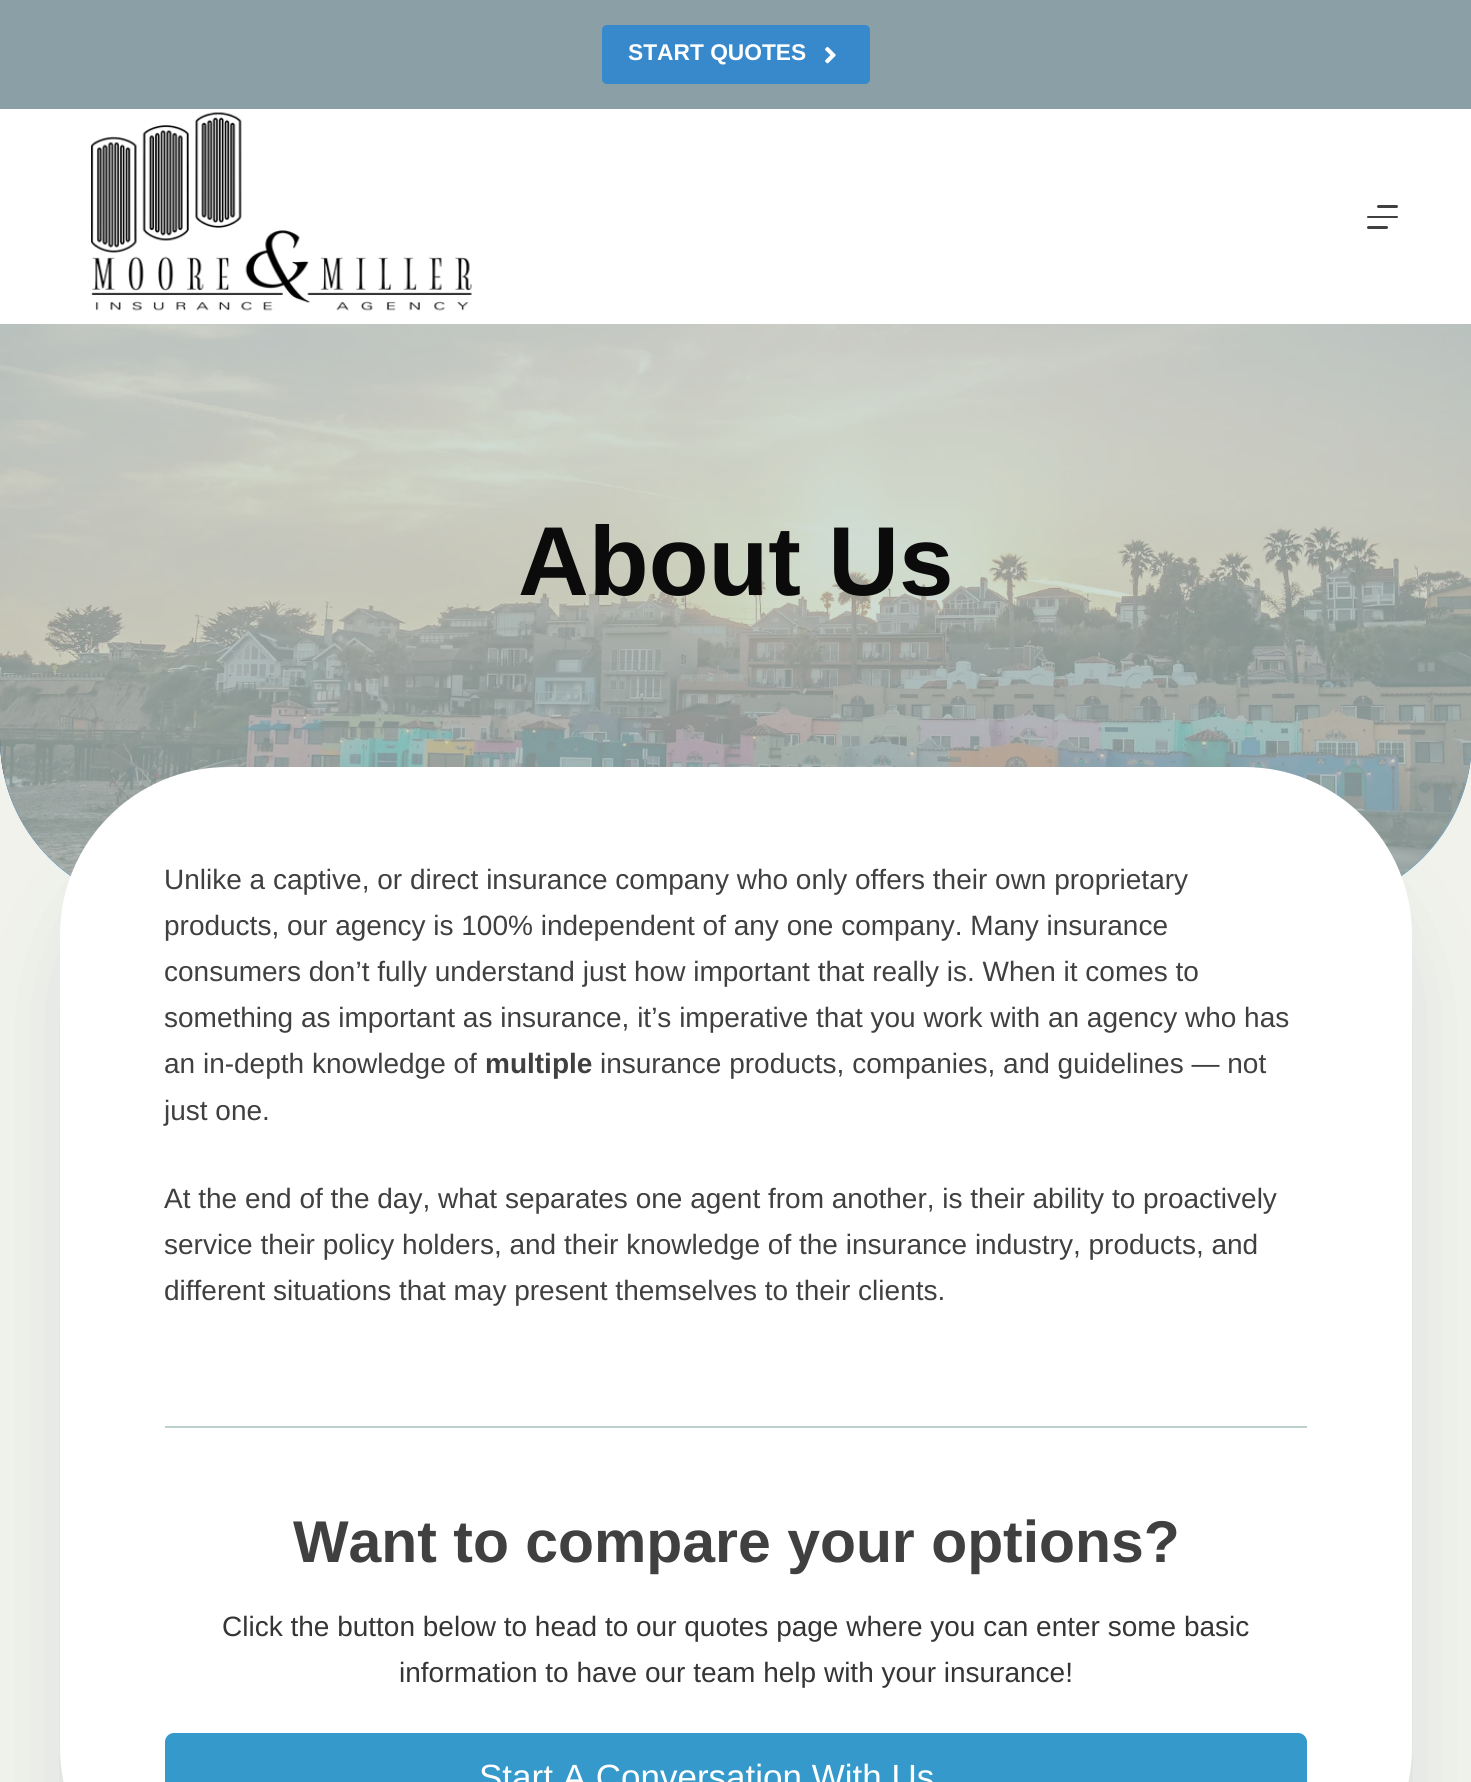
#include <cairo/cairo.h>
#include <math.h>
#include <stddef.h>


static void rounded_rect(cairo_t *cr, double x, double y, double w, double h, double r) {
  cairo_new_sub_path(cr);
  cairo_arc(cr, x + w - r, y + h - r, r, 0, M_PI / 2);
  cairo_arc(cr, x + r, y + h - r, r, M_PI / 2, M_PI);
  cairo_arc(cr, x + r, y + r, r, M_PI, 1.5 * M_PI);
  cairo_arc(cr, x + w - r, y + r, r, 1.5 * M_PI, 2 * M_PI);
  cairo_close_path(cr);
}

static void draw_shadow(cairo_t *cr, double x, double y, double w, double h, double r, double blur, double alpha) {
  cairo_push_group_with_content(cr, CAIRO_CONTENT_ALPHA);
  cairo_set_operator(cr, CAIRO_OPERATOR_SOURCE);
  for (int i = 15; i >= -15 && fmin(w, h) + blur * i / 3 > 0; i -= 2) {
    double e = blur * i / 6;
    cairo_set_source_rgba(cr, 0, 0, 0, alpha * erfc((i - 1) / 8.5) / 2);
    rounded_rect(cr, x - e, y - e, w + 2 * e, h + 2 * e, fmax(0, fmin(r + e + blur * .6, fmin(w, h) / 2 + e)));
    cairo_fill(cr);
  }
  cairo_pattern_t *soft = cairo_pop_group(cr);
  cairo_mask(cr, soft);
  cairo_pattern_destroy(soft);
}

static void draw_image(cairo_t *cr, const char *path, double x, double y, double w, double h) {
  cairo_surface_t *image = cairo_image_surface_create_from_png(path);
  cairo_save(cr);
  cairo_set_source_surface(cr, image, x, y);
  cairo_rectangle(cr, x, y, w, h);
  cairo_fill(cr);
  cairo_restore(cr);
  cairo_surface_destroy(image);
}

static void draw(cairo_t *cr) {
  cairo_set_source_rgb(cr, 241 / 255.0, 242 / 255.0, 236 / 255.0);
  cairo_paint(cr);
  cairo_set_source_rgb(cr, 139 / 255.0, 160 / 255.0, 166 / 255.0);
  cairo_rectangle(cr, 0, 0, 1471, 109);
  cairo_fill(cr);
  cairo_set_source_rgb(cr, 55 / 255.0, 137 / 255.0, 204 / 255.0);
  rounded_rect(cr, 602, 25, 268, 59, 5);
  cairo_fill(cr);
  draw_image(cr, "images/1.png", 825, 46, 11, 18);
  cairo_set_source_rgb(cr, 1, 1, 1);
  cairo_rectangle(cr, 0, 109, 1471, 215);
  cairo_fill(cr);
  draw_image(cr, "images/2.png", 73, 109, 417, 202);
  cairo_set_source_rgb(cr, 64 / 255.0, 64 / 255.0, 64 / 255.0);
  rounded_rect(cr, 1377, 205, 21, 3, 1.5);
  cairo_fill(cr);
  rounded_rect(cr, 1367, 216, 31, 2, 1);
  cairo_fill(cr);
  rounded_rect(cr, 1367, 226, 21, 3, 1.5);
  cairo_fill(cr);
  cairo_set_source_rgb(cr, 0, 85 / 255.0, 160 / 255.0);
  cairo_new_path(cr);
  cairo_move_to(cr, 0, 324);
  cairo_line_to(cr, 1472, 324);
  cairo_line_to(cr, 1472, 739);
  cairo_curve_to(cr, 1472, 832, 1397, 907, 1304, 907);
  cairo_line_to(cr, 168, 907);
  cairo_curve_to(cr, 75, 907, 0, 832, 0, 739);
  cairo_close_path(cr);
  cairo_fill(cr);
  draw_image(cr, "images/3.png", 0, 324, 1471, 552);
  cairo_set_source_rgba(cr, 188 / 255.0, 210 / 255.0, 206 / 255.0, 0.7);
  cairo_new_path(cr);
  cairo_move_to(cr, 0, 324);
  cairo_line_to(cr, 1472, 324);
  cairo_line_to(cr, 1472, 739);
  cairo_curve_to(cr, 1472, 832, 1397, 907, 1304, 907);
  cairo_line_to(cr, 168, 907);
  cairo_curve_to(cr, 75, 907, 0, 832, 0, 739);
  cairo_close_path(cr);
  cairo_fill(cr);
  cairo_set_source_rgb(cr, 52 / 255.0, 94 / 255.0, 124 / 255.0);
  draw_shadow(cr, 81, 854, 1310, 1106, 147, 44, 0.22);
  cairo_set_source_rgb(cr, 1, 1, 1);
  rounded_rect(cr, 60, 767, 1352, 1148, 168);
  cairo_fill(cr);
  cairo_set_source_rgb(cr, 189 / 255.0, 210 / 255.0, 207 / 255.0);
  cairo_rectangle(cr, 165, 1426, 1142, 2);
  cairo_fill(cr);
  cairo_set_source_rgb(cr, 54 / 255.0, 153 / 255.0, 203 / 255.0);
  rounded_rect(cr, 166, 1734, 1140, 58, 8);
  cairo_fill_preserve(cr);
  cairo_stroke(cr);
  cairo_select_font_face(cr, "Liberation Sans", CAIRO_FONT_SLANT_NORMAL, CAIRO_FONT_WEIGHT_BOLD);
  cairo_set_font_size(cr, 22.75);
  cairo_set_source_rgb(cr, 1, 1, 1);
  cairo_move_to(cr, 628, 60);
  cairo_show_text(cr, "START QUOTES");
  cairo_set_font_size(cr, 98);
  cairo_set_source_rgb(cr, 11 / 255.0, 11 / 255.0, 11 / 255.0);
  cairo_move_to(cr, 518, 595);
  cairo_show_text(cr, "About Us");
  cairo_select_font_face(cr, "Liberation Sans", CAIRO_FONT_SLANT_NORMAL, CAIRO_FONT_WEIGHT_NORMAL);
  cairo_set_font_size(cr, 28);
  cairo_set_source_rgb(cr, 64 / 255.0, 64 / 255.0, 64 / 255.0);
  cairo_move_to(cr, 164, 889);
  cairo_show_text(cr, "Unlike a captive, or direct insurance company who only offers their own proprietary");
  cairo_move_to(cr, 164, 935);
  cairo_show_text(cr, "products, our agency is 100% independent of any one company. Many insurance");
  cairo_move_to(cr, 164, 981);
  cairo_show_text(cr, "consumers don’t fully understand just how important that really is. When it comes to");
  cairo_move_to(cr, 164, 1027);
  cairo_show_text(cr, "something as important as insurance, it’s imperative that you work with an agency who has");
  cairo_move_to(cr, 164, 1073);
  cairo_show_text(cr, "an in-depth knowledge of");
  cairo_select_font_face(cr, "Liberation Sans", CAIRO_FONT_SLANT_NORMAL, CAIRO_FONT_WEIGHT_BOLD);
  cairo_move_to(cr, 485, 1073);
  cairo_show_text(cr, "multiple");
  cairo_select_font_face(cr, "Liberation Sans", CAIRO_FONT_SLANT_NORMAL, CAIRO_FONT_WEIGHT_NORMAL);
  cairo_move_to(cr, 600, 1073);
  cairo_show_text(cr, "insurance products, companies, and guidelines — not");
  cairo_move_to(cr, 164, 1120);
  cairo_show_text(cr, "just one.");
  cairo_move_to(cr, 164, 1208);
  cairo_show_text(cr, "At the end of the day, what separates one agent from another, is their ability to proactively");
  cairo_move_to(cr, 164, 1254);
  cairo_show_text(cr, "service their policy holders, and their knowledge of the insurance industry, products, and");
  cairo_move_to(cr, 164, 1300);
  cairo_show_text(cr, "different situations that may present themselves to their clients.");
  cairo_select_font_face(cr, "Liberation Sans", CAIRO_FONT_SLANT_NORMAL, CAIRO_FONT_WEIGHT_BOLD);
  cairo_set_font_size(cr, 58.9);
  cairo_move_to(cr, 293, 1562);
  cairo_show_text(cr, "Want to compare your options?");
  cairo_select_font_face(cr, "Liberation Sans", CAIRO_FONT_SLANT_NORMAL, CAIRO_FONT_WEIGHT_NORMAL);
  cairo_set_font_size(cr, 28);
  cairo_set_source_rgb(cr, 53 / 255.0, 53 / 255.0, 53 / 255.0);
  cairo_move_to(cr, 222, 1636);
  cairo_show_text(cr, "Click the button below to head to our quotes page where you can enter some basic");
  cairo_move_to(cr, 399, 1682);
  cairo_show_text(cr, "information to have our team help with your insurance!");
  cairo_set_font_size(cr, 35);
  cairo_set_source_rgb(cr, 1, 1, 1);
  cairo_move_to(cr, 479, 1789);
  cairo_show_text(cr, "Start A Conversation With Us");
}

int main(void) {
  cairo_surface_t *surface = cairo_image_surface_create(CAIRO_FORMAT_RGB24, 1471, 1782);
  cairo_t *cr = cairo_create(surface);
  cairo_font_options_t *options = cairo_font_options_create();
  cairo_font_options_set_hint_metrics(options, CAIRO_HINT_METRICS_OFF);
  cairo_font_options_set_hint_style(options, CAIRO_HINT_STYLE_NONE);
  cairo_set_font_options(cr, options);
  cairo_set_miter_limit(cr, 4);
  draw(cr);
  cairo_surface_write_to_png(surface, "out.png");
  cairo_font_options_destroy(options);
  cairo_destroy(cr);
  cairo_surface_destroy(surface);
  return 0;
}
